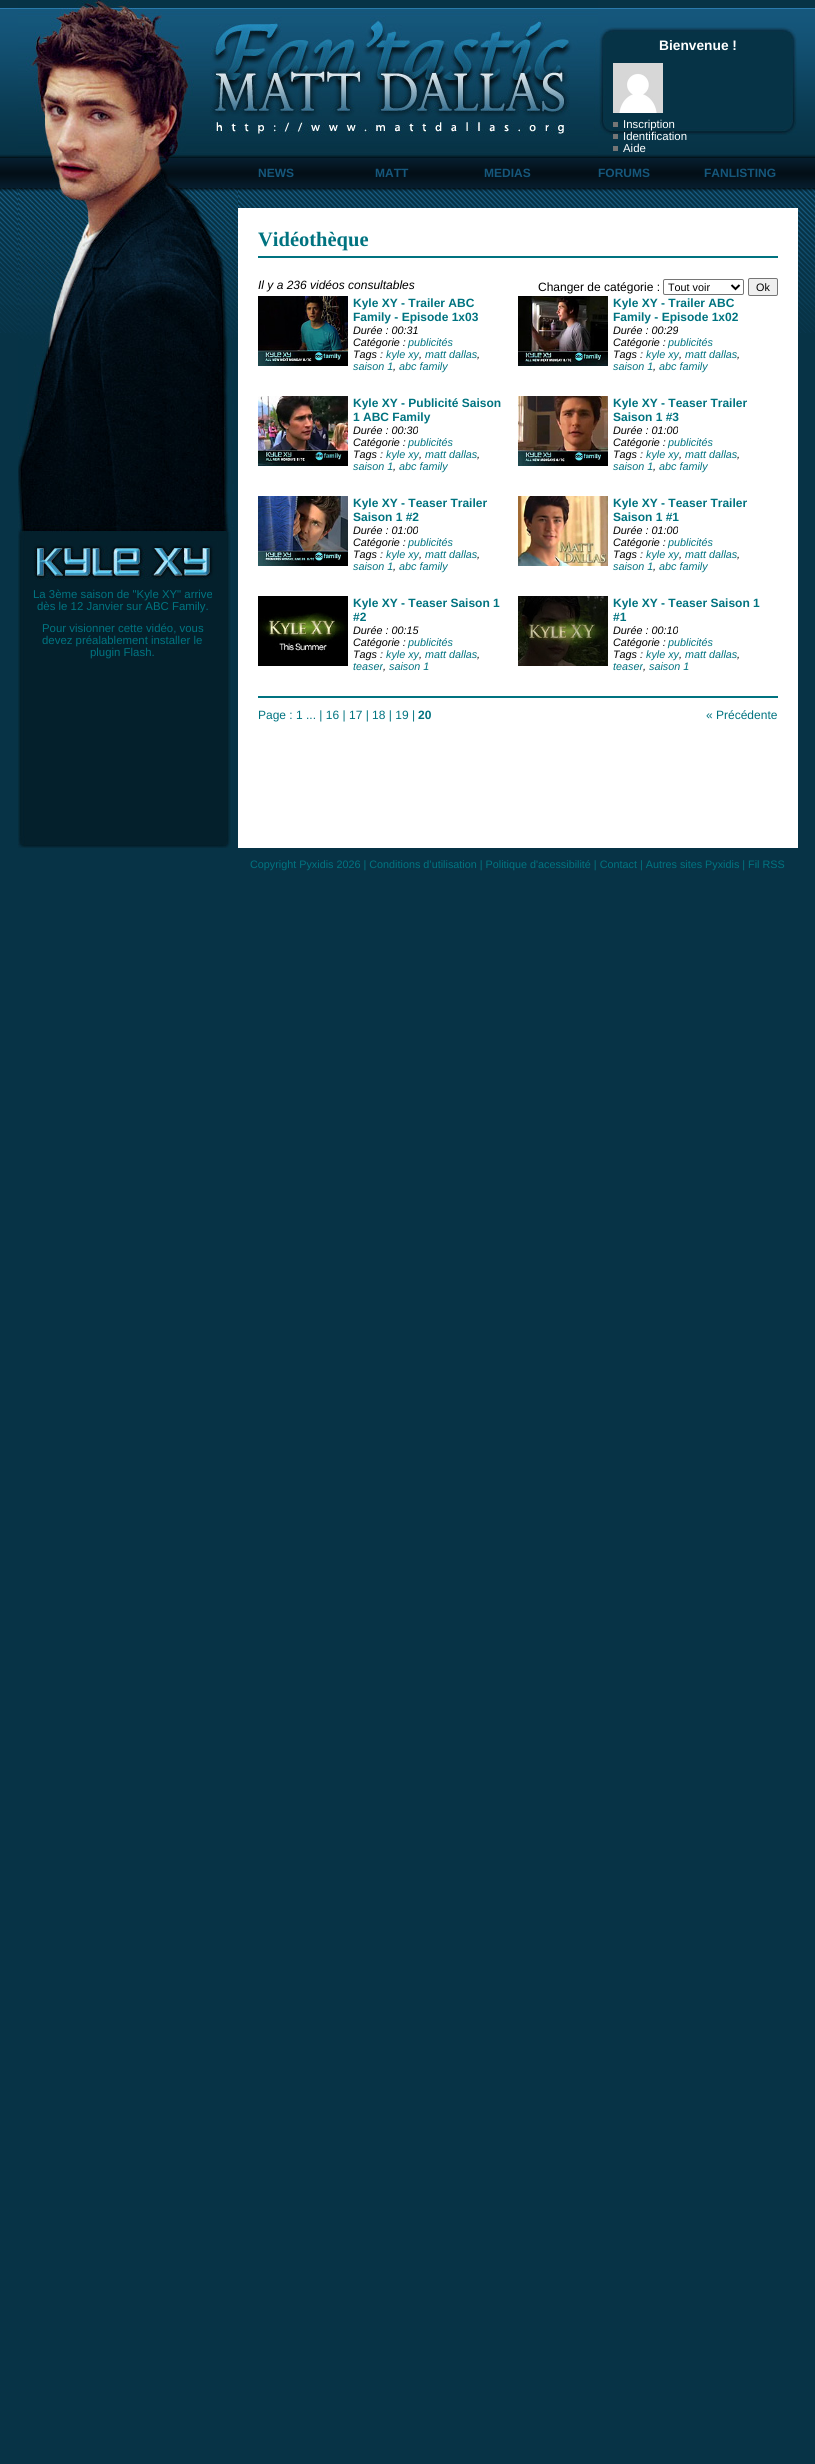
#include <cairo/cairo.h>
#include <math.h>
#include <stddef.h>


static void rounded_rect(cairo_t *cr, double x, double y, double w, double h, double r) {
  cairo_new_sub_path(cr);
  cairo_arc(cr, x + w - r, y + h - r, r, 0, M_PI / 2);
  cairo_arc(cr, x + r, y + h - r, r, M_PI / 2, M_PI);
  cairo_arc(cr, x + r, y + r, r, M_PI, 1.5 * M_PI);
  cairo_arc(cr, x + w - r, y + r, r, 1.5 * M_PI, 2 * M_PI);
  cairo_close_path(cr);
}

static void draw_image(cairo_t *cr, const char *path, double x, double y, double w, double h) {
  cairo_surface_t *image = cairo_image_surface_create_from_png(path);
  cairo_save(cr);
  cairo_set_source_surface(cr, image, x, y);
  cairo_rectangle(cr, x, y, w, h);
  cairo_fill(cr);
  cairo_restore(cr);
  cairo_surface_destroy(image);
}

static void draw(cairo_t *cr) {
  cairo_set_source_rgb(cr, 7 / 255.0, 51 / 255.0, 70 / 255.0);
  cairo_paint(cr);
  draw_image(cr, "images/1.png", 0, 8, 815, 325);
  draw_image(cr, "images/2.png", 18, 0, 580, 158);
  draw_image(cr, "images/3.png", 599, 27, 198, 108);
  draw_image(cr, "images/4.png", 613, 63, 50, 50);
  cairo_set_source_rgb(cr, 117 / 255.0, 117 / 255.0, 117 / 255.0);
  cairo_rectangle(cr, 613, 122, 5, 5);
  cairo_fill(cr);
  cairo_rectangle(cr, 613, 134, 5, 5);
  cairo_fill(cr);
  cairo_rectangle(cr, 613, 146, 5, 5);
  cairo_fill(cr);
  draw_image(cr, "images/5.png", 50, 158, 128, 30);
  draw_image(cr, "images/6.png", 18, 188, 220, 660);
  cairo_set_source_rgb(cr, 1, 1, 1);
  cairo_rectangle(cr, 238, 208, 560, 640);
  cairo_fill(cr);
  cairo_set_source_rgb(cr, 0, 115 / 255.0, 128 / 255.0);
  cairo_rectangle(cr, 258, 256, 520, 2);
  cairo_fill(cr);
  rounded_rect(cr, 663.5, 279.5, 80, 15, 1.5);
  cairo_set_source_rgb(cr, 118 / 255.0, 118 / 255.0, 118 / 255.0);
  cairo_set_line_width(cr, 1);
  cairo_stroke(cr);
  cairo_new_path(cr);
  cairo_move_to(cr, 731.5, 285);
  cairo_line_to(cr, 735.5, 289);
  cairo_line_to(cr, 739.5, 285);
  cairo_set_source_rgb(cr, 0, 0, 0);
  cairo_set_line_width(cr, 2);
  cairo_stroke(cr);
  cairo_set_source_rgb(cr, 239 / 255.0, 239 / 255.0, 239 / 255.0);
  rounded_rect(cr, 748.5, 278.5, 29, 17, 1.5);
  cairo_fill_preserve(cr);
  cairo_set_source_rgb(cr, 118 / 255.0, 118 / 255.0, 118 / 255.0);
  cairo_set_line_width(cr, 1);
  cairo_stroke(cr);
  draw_image(cr, "images/7.png", 258, 296, 90, 70);
  draw_image(cr, "images/8.png", 518, 296, 90, 70);
  draw_image(cr, "images/9.png", 258, 396, 90, 70);
  draw_image(cr, "images/10.png", 518, 396, 90, 70);
  draw_image(cr, "images/11.png", 258, 496, 90, 70);
  draw_image(cr, "images/12.png", 518, 496, 90, 70);
  draw_image(cr, "images/13.png", 258, 596, 90, 70);
  draw_image(cr, "images/14.png", 518, 596, 90, 70);
  cairo_set_source_rgb(cr, 0, 115 / 255.0, 128 / 255.0);
  cairo_rectangle(cr, 258, 696, 520, 2);
  cairo_fill(cr);
  cairo_select_font_face(cr, "Liberation Sans", CAIRO_FONT_SLANT_NORMAL, CAIRO_FONT_WEIGHT_BOLD);
  cairo_set_font_size(cr, 13.75);
  cairo_set_source_rgb(cr, 1, 1, 1);
  cairo_move_to(cr, 659, 50);
  cairo_show_text(cr, "Bienvenue !");
  cairo_select_font_face(cr, "Liberation Sans", CAIRO_FONT_SLANT_NORMAL, CAIRO_FONT_WEIGHT_NORMAL);
  cairo_set_font_size(cr, 11.4);
  cairo_move_to(cr, 623, 128);
  cairo_show_text(cr, "Inscription");
  cairo_move_to(cr, 623, 140);
  cairo_show_text(cr, "Identification");
  cairo_move_to(cr, 623, 152);
  cairo_show_text(cr, "Aide");
  cairo_select_font_face(cr, "Liberation Sans", CAIRO_FONT_SLANT_NORMAL, CAIRO_FONT_WEIGHT_BOLD);
  cairo_set_font_size(cr, 12);
  cairo_set_source_rgb(cr, 21 / 255.0, 87 / 255.0, 124 / 255.0);
  cairo_move_to(cr, 258, 177);
  cairo_show_text(cr, "NEWS");
  cairo_move_to(cr, 375, 177);
  cairo_show_text(cr, "MATT");
  cairo_move_to(cr, 484, 177);
  cairo_show_text(cr, "MEDIAS");
  cairo_move_to(cr, 598, 177);
  cairo_show_text(cr, "FORUMS");
  cairo_move_to(cr, 704, 177);
  cairo_show_text(cr, "FANLISTING");
  cairo_select_font_face(cr, "Liberation Sans", CAIRO_FONT_SLANT_NORMAL, CAIRO_FONT_WEIGHT_NORMAL);
  cairo_set_font_size(cr, 11.4);
  cairo_set_source_rgb(cr, 0, 115 / 255.0, 128 / 255.0);
  cairo_move_to(cr, 33, 598);
  cairo_show_text(cr, "La 3ème saison de \"Kyle XY\" arrive");
  cairo_move_to(cr, 37, 610);
  cairo_show_text(cr, "dès le 12 Janvier sur ABC Family.");
  cairo_move_to(cr, 42, 632);
  cairo_show_text(cr, "Pour visionner cette vidéo, vous");
  cairo_move_to(cr, 42, 644);
  cairo_show_text(cr, "devez préalablement installer le");
  cairo_move_to(cr, 90, 656);
  cairo_show_text(cr, "plugin Flash.");
  cairo_select_font_face(cr, "Liberation Serif", CAIRO_FONT_SLANT_NORMAL, CAIRO_FONT_WEIGHT_BOLD);
  cairo_set_font_size(cr, 20.5);
  cairo_move_to(cr, 258, 246);
  cairo_show_text(cr, "Vidéothèque");
  cairo_select_font_face(cr, "Liberation Sans", CAIRO_FONT_SLANT_ITALIC, CAIRO_FONT_WEIGHT_NORMAL);
  cairo_set_font_size(cr, 12);
  cairo_set_source_rgb(cr, 0, 0, 0);
  cairo_move_to(cr, 258, 289);
  cairo_show_text(cr, "Il y a 236 vidéos consultables");
  cairo_select_font_face(cr, "Liberation Sans", CAIRO_FONT_SLANT_NORMAL, CAIRO_FONT_WEIGHT_NORMAL);
  cairo_move_to(cr, 538, 291);
  cairo_show_text(cr, "Changer de catégorie :");
  cairo_set_font_size(cr, 10.8);
  cairo_move_to(cr, 668, 291);
  cairo_show_text(cr, "Tout voir");
  cairo_move_to(cr, 756, 291);
  cairo_show_text(cr, "Ok");
  cairo_select_font_face(cr, "Liberation Sans", CAIRO_FONT_SLANT_NORMAL, CAIRO_FONT_WEIGHT_BOLD);
  cairo_set_font_size(cr, 12);
  cairo_set_source_rgb(cr, 0, 115 / 255.0, 128 / 255.0);
  cairo_move_to(cr, 353, 307);
  cairo_show_text(cr, "Kyle XY - Trailer ABC");
  cairo_move_to(cr, 353, 321);
  cairo_show_text(cr, "Family - Episode 1x03");
  cairo_select_font_face(cr, "Liberation Sans", CAIRO_FONT_SLANT_ITALIC, CAIRO_FONT_WEIGHT_NORMAL);
  cairo_set_font_size(cr, 10.8);
  cairo_set_source_rgb(cr, 0, 0, 0);
  cairo_move_to(cr, 353, 334);
  cairo_show_text(cr, "Durée : 00:31");
  cairo_move_to(cr, 353, 346);
  cairo_show_text(cr, "Catégorie :");
  cairo_set_source_rgb(cr, 0, 115 / 255.0, 128 / 255.0);
  cairo_move_to(cr, 408, 346);
  cairo_show_text(cr, "publicités");
  cairo_set_source_rgb(cr, 0, 0, 0);
  cairo_move_to(cr, 353, 358);
  cairo_show_text(cr, "Tags :");
  cairo_set_source_rgb(cr, 0, 115 / 255.0, 128 / 255.0);
  cairo_move_to(cr, 386, 358);
  cairo_show_text(cr, "kyle xy");
  cairo_move_to(cr, 425, 358);
  cairo_show_text(cr, "matt dallas");
  cairo_set_source_rgb(cr, 0, 0, 0);
  cairo_move_to(cr, 419, 358);
  cairo_show_text(cr, ",");
  cairo_move_to(cr, 477, 358);
  cairo_show_text(cr, ",");
  cairo_set_source_rgb(cr, 0, 115 / 255.0, 128 / 255.0);
  cairo_move_to(cr, 353, 370);
  cairo_show_text(cr, "saison 1");
  cairo_set_source_rgb(cr, 0, 0, 0);
  cairo_move_to(cr, 393, 370);
  cairo_show_text(cr, ",");
  cairo_set_source_rgb(cr, 0, 115 / 255.0, 128 / 255.0);
  cairo_move_to(cr, 399, 370);
  cairo_show_text(cr, "abc family");
  cairo_select_font_face(cr, "Liberation Sans", CAIRO_FONT_SLANT_NORMAL, CAIRO_FONT_WEIGHT_BOLD);
  cairo_set_font_size(cr, 12);
  cairo_move_to(cr, 613, 307);
  cairo_show_text(cr, "Kyle XY - Trailer ABC");
  cairo_move_to(cr, 613, 321);
  cairo_show_text(cr, "Family - Episode 1x02");
  cairo_select_font_face(cr, "Liberation Sans", CAIRO_FONT_SLANT_ITALIC, CAIRO_FONT_WEIGHT_NORMAL);
  cairo_set_font_size(cr, 10.8);
  cairo_set_source_rgb(cr, 0, 0, 0);
  cairo_move_to(cr, 613, 334);
  cairo_show_text(cr, "Durée : 00:29");
  cairo_move_to(cr, 613, 346);
  cairo_show_text(cr, "Catégorie :");
  cairo_set_source_rgb(cr, 0, 115 / 255.0, 128 / 255.0);
  cairo_move_to(cr, 668, 346);
  cairo_show_text(cr, "publicités");
  cairo_set_source_rgb(cr, 0, 0, 0);
  cairo_move_to(cr, 613, 358);
  cairo_show_text(cr, "Tags :");
  cairo_set_source_rgb(cr, 0, 115 / 255.0, 128 / 255.0);
  cairo_move_to(cr, 646, 358);
  cairo_show_text(cr, "kyle xy");
  cairo_move_to(cr, 685, 358);
  cairo_show_text(cr, "matt dallas");
  cairo_set_source_rgb(cr, 0, 0, 0);
  cairo_move_to(cr, 679, 358);
  cairo_show_text(cr, ",");
  cairo_move_to(cr, 737, 358);
  cairo_show_text(cr, ",");
  cairo_set_source_rgb(cr, 0, 115 / 255.0, 128 / 255.0);
  cairo_move_to(cr, 613, 370);
  cairo_show_text(cr, "saison 1");
  cairo_set_source_rgb(cr, 0, 0, 0);
  cairo_move_to(cr, 653, 370);
  cairo_show_text(cr, ",");
  cairo_set_source_rgb(cr, 0, 115 / 255.0, 128 / 255.0);
  cairo_move_to(cr, 659, 370);
  cairo_show_text(cr, "abc family");
  cairo_select_font_face(cr, "Liberation Sans", CAIRO_FONT_SLANT_NORMAL, CAIRO_FONT_WEIGHT_BOLD);
  cairo_set_font_size(cr, 12);
  cairo_move_to(cr, 353, 407);
  cairo_show_text(cr, "Kyle XY - Publicité Saison");
  cairo_move_to(cr, 353, 421);
  cairo_show_text(cr, "1 ABC Family");
  cairo_select_font_face(cr, "Liberation Sans", CAIRO_FONT_SLANT_ITALIC, CAIRO_FONT_WEIGHT_NORMAL);
  cairo_set_font_size(cr, 10.8);
  cairo_set_source_rgb(cr, 0, 0, 0);
  cairo_move_to(cr, 353, 434);
  cairo_show_text(cr, "Durée : 00:30");
  cairo_move_to(cr, 353, 446);
  cairo_show_text(cr, "Catégorie :");
  cairo_set_source_rgb(cr, 0, 115 / 255.0, 128 / 255.0);
  cairo_move_to(cr, 408, 446);
  cairo_show_text(cr, "publicités");
  cairo_set_source_rgb(cr, 0, 0, 0);
  cairo_move_to(cr, 353, 458);
  cairo_show_text(cr, "Tags :");
  cairo_set_source_rgb(cr, 0, 115 / 255.0, 128 / 255.0);
  cairo_move_to(cr, 386, 458);
  cairo_show_text(cr, "kyle xy");
  cairo_move_to(cr, 425, 458);
  cairo_show_text(cr, "matt dallas");
  cairo_set_source_rgb(cr, 0, 0, 0);
  cairo_move_to(cr, 419, 458);
  cairo_show_text(cr, ",");
  cairo_move_to(cr, 477, 458);
  cairo_show_text(cr, ",");
  cairo_set_source_rgb(cr, 0, 115 / 255.0, 128 / 255.0);
  cairo_move_to(cr, 353, 470);
  cairo_show_text(cr, "saison 1");
  cairo_set_source_rgb(cr, 0, 0, 0);
  cairo_move_to(cr, 393, 470);
  cairo_show_text(cr, ",");
  cairo_set_source_rgb(cr, 0, 115 / 255.0, 128 / 255.0);
  cairo_move_to(cr, 399, 470);
  cairo_show_text(cr, "abc family");
  cairo_select_font_face(cr, "Liberation Sans", CAIRO_FONT_SLANT_NORMAL, CAIRO_FONT_WEIGHT_BOLD);
  cairo_set_font_size(cr, 12);
  cairo_move_to(cr, 613, 407);
  cairo_show_text(cr, "Kyle XY - Teaser Trailer");
  cairo_move_to(cr, 613, 421);
  cairo_show_text(cr, "Saison 1 #3");
  cairo_select_font_face(cr, "Liberation Sans", CAIRO_FONT_SLANT_ITALIC, CAIRO_FONT_WEIGHT_NORMAL);
  cairo_set_font_size(cr, 10.8);
  cairo_set_source_rgb(cr, 0, 0, 0);
  cairo_move_to(cr, 613, 434);
  cairo_show_text(cr, "Durée : 01:00");
  cairo_move_to(cr, 613, 446);
  cairo_show_text(cr, "Catégorie :");
  cairo_set_source_rgb(cr, 0, 115 / 255.0, 128 / 255.0);
  cairo_move_to(cr, 668, 446);
  cairo_show_text(cr, "publicités");
  cairo_set_source_rgb(cr, 0, 0, 0);
  cairo_move_to(cr, 613, 458);
  cairo_show_text(cr, "Tags :");
  cairo_set_source_rgb(cr, 0, 115 / 255.0, 128 / 255.0);
  cairo_move_to(cr, 646, 458);
  cairo_show_text(cr, "kyle xy");
  cairo_move_to(cr, 685, 458);
  cairo_show_text(cr, "matt dallas");
  cairo_set_source_rgb(cr, 0, 0, 0);
  cairo_move_to(cr, 679, 458);
  cairo_show_text(cr, ",");
  cairo_move_to(cr, 737, 458);
  cairo_show_text(cr, ",");
  cairo_set_source_rgb(cr, 0, 115 / 255.0, 128 / 255.0);
  cairo_move_to(cr, 613, 470);
  cairo_show_text(cr, "saison 1");
  cairo_set_source_rgb(cr, 0, 0, 0);
  cairo_move_to(cr, 653, 470);
  cairo_show_text(cr, ",");
  cairo_set_source_rgb(cr, 0, 115 / 255.0, 128 / 255.0);
  cairo_move_to(cr, 659, 470);
  cairo_show_text(cr, "abc family");
  cairo_select_font_face(cr, "Liberation Sans", CAIRO_FONT_SLANT_NORMAL, CAIRO_FONT_WEIGHT_BOLD);
  cairo_set_font_size(cr, 12);
  cairo_move_to(cr, 353, 507);
  cairo_show_text(cr, "Kyle XY - Teaser Trailer");
  cairo_move_to(cr, 353, 521);
  cairo_show_text(cr, "Saison 1 #2");
  cairo_select_font_face(cr, "Liberation Sans", CAIRO_FONT_SLANT_ITALIC, CAIRO_FONT_WEIGHT_NORMAL);
  cairo_set_font_size(cr, 10.8);
  cairo_set_source_rgb(cr, 0, 0, 0);
  cairo_move_to(cr, 353, 534);
  cairo_show_text(cr, "Durée : 01:00");
  cairo_move_to(cr, 353, 546);
  cairo_show_text(cr, "Catégorie :");
  cairo_set_source_rgb(cr, 0, 115 / 255.0, 128 / 255.0);
  cairo_move_to(cr, 408, 546);
  cairo_show_text(cr, "publicités");
  cairo_set_source_rgb(cr, 0, 0, 0);
  cairo_move_to(cr, 353, 558);
  cairo_show_text(cr, "Tags :");
  cairo_set_source_rgb(cr, 0, 115 / 255.0, 128 / 255.0);
  cairo_move_to(cr, 386, 558);
  cairo_show_text(cr, "kyle xy");
  cairo_move_to(cr, 425, 558);
  cairo_show_text(cr, "matt dallas");
  cairo_set_source_rgb(cr, 0, 0, 0);
  cairo_move_to(cr, 419, 558);
  cairo_show_text(cr, ",");
  cairo_move_to(cr, 477, 558);
  cairo_show_text(cr, ",");
  cairo_set_source_rgb(cr, 0, 115 / 255.0, 128 / 255.0);
  cairo_move_to(cr, 353, 570);
  cairo_show_text(cr, "saison 1");
  cairo_set_source_rgb(cr, 0, 0, 0);
  cairo_move_to(cr, 393, 570);
  cairo_show_text(cr, ",");
  cairo_set_source_rgb(cr, 0, 115 / 255.0, 128 / 255.0);
  cairo_move_to(cr, 399, 570);
  cairo_show_text(cr, "abc family");
  cairo_select_font_face(cr, "Liberation Sans", CAIRO_FONT_SLANT_NORMAL, CAIRO_FONT_WEIGHT_BOLD);
  cairo_set_font_size(cr, 12);
  cairo_move_to(cr, 613, 507);
  cairo_show_text(cr, "Kyle XY - Teaser Trailer");
  cairo_move_to(cr, 613, 521);
  cairo_show_text(cr, "Saison 1 #1");
  cairo_select_font_face(cr, "Liberation Sans", CAIRO_FONT_SLANT_ITALIC, CAIRO_FONT_WEIGHT_NORMAL);
  cairo_set_font_size(cr, 10.8);
  cairo_set_source_rgb(cr, 0, 0, 0);
  cairo_move_to(cr, 613, 534);
  cairo_show_text(cr, "Durée : 01:00");
  cairo_move_to(cr, 613, 546);
  cairo_show_text(cr, "Catégorie :");
  cairo_set_source_rgb(cr, 0, 115 / 255.0, 128 / 255.0);
  cairo_move_to(cr, 668, 546);
  cairo_show_text(cr, "publicités");
  cairo_set_source_rgb(cr, 0, 0, 0);
  cairo_move_to(cr, 613, 558);
  cairo_show_text(cr, "Tags :");
  cairo_set_source_rgb(cr, 0, 115 / 255.0, 128 / 255.0);
  cairo_move_to(cr, 646, 558);
  cairo_show_text(cr, "kyle xy");
  cairo_move_to(cr, 685, 558);
  cairo_show_text(cr, "matt dallas");
  cairo_set_source_rgb(cr, 0, 0, 0);
  cairo_move_to(cr, 679, 558);
  cairo_show_text(cr, ",");
  cairo_move_to(cr, 737, 558);
  cairo_show_text(cr, ",");
  cairo_set_source_rgb(cr, 0, 115 / 255.0, 128 / 255.0);
  cairo_move_to(cr, 613, 570);
  cairo_show_text(cr, "saison 1");
  cairo_set_source_rgb(cr, 0, 0, 0);
  cairo_move_to(cr, 653, 570);
  cairo_show_text(cr, ",");
  cairo_set_source_rgb(cr, 0, 115 / 255.0, 128 / 255.0);
  cairo_move_to(cr, 659, 570);
  cairo_show_text(cr, "abc family");
  cairo_select_font_face(cr, "Liberation Sans", CAIRO_FONT_SLANT_NORMAL, CAIRO_FONT_WEIGHT_BOLD);
  cairo_set_font_size(cr, 12);
  cairo_move_to(cr, 353, 607);
  cairo_show_text(cr, "Kyle XY - Teaser Saison 1");
  cairo_move_to(cr, 353, 621);
  cairo_show_text(cr, "#2");
  cairo_select_font_face(cr, "Liberation Sans", CAIRO_FONT_SLANT_ITALIC, CAIRO_FONT_WEIGHT_NORMAL);
  cairo_set_font_size(cr, 10.8);
  cairo_set_source_rgb(cr, 0, 0, 0);
  cairo_move_to(cr, 353, 634);
  cairo_show_text(cr, "Durée : 00:15");
  cairo_move_to(cr, 353, 646);
  cairo_show_text(cr, "Catégorie :");
  cairo_set_source_rgb(cr, 0, 115 / 255.0, 128 / 255.0);
  cairo_move_to(cr, 408, 646);
  cairo_show_text(cr, "publicités");
  cairo_set_source_rgb(cr, 0, 0, 0);
  cairo_move_to(cr, 353, 658);
  cairo_show_text(cr, "Tags :");
  cairo_set_source_rgb(cr, 0, 115 / 255.0, 128 / 255.0);
  cairo_move_to(cr, 386, 658);
  cairo_show_text(cr, "kyle xy");
  cairo_move_to(cr, 425, 658);
  cairo_show_text(cr, "matt dallas");
  cairo_set_source_rgb(cr, 0, 0, 0);
  cairo_move_to(cr, 419, 658);
  cairo_show_text(cr, ",");
  cairo_move_to(cr, 477, 658);
  cairo_show_text(cr, ",");
  cairo_set_source_rgb(cr, 0, 115 / 255.0, 128 / 255.0);
  cairo_move_to(cr, 353, 670);
  cairo_show_text(cr, "teaser");
  cairo_set_source_rgb(cr, 0, 0, 0);
  cairo_move_to(cr, 383, 670);
  cairo_show_text(cr, ",");
  cairo_set_source_rgb(cr, 0, 115 / 255.0, 128 / 255.0);
  cairo_move_to(cr, 389, 670);
  cairo_show_text(cr, "saison 1");
  cairo_select_font_face(cr, "Liberation Sans", CAIRO_FONT_SLANT_NORMAL, CAIRO_FONT_WEIGHT_BOLD);
  cairo_set_font_size(cr, 12);
  cairo_move_to(cr, 613, 607);
  cairo_show_text(cr, "Kyle XY - Teaser Saison 1");
  cairo_move_to(cr, 613, 621);
  cairo_show_text(cr, "#1");
  cairo_select_font_face(cr, "Liberation Sans", CAIRO_FONT_SLANT_ITALIC, CAIRO_FONT_WEIGHT_NORMAL);
  cairo_set_font_size(cr, 10.8);
  cairo_set_source_rgb(cr, 0, 0, 0);
  cairo_move_to(cr, 613, 634);
  cairo_show_text(cr, "Durée : 00:10");
  cairo_move_to(cr, 613, 646);
  cairo_show_text(cr, "Catégorie :");
  cairo_set_source_rgb(cr, 0, 115 / 255.0, 128 / 255.0);
  cairo_move_to(cr, 668, 646);
  cairo_show_text(cr, "publicités");
  cairo_set_source_rgb(cr, 0, 0, 0);
  cairo_move_to(cr, 613, 658);
  cairo_show_text(cr, "Tags :");
  cairo_set_source_rgb(cr, 0, 115 / 255.0, 128 / 255.0);
  cairo_move_to(cr, 646, 658);
  cairo_show_text(cr, "kyle xy");
  cairo_move_to(cr, 685, 658);
  cairo_show_text(cr, "matt dallas");
  cairo_set_source_rgb(cr, 0, 0, 0);
  cairo_move_to(cr, 679, 658);
  cairo_show_text(cr, ",");
  cairo_move_to(cr, 737, 658);
  cairo_show_text(cr, ",");
  cairo_set_source_rgb(cr, 0, 115 / 255.0, 128 / 255.0);
  cairo_move_to(cr, 613, 670);
  cairo_show_text(cr, "teaser");
  cairo_set_source_rgb(cr, 0, 0, 0);
  cairo_move_to(cr, 643, 670);
  cairo_show_text(cr, ",");
  cairo_set_source_rgb(cr, 0, 115 / 255.0, 128 / 255.0);
  cairo_move_to(cr, 649, 670);
  cairo_show_text(cr, "saison 1");
  cairo_select_font_face(cr, "Liberation Sans", CAIRO_FONT_SLANT_NORMAL, CAIRO_FONT_WEIGHT_NORMAL);
  cairo_set_font_size(cr, 12);
  cairo_move_to(cr, 258, 719);
  cairo_show_text(cr, "Page : 1 ... | 16 | 17 | 18 | 19 |");
  cairo_select_font_face(cr, "Liberation Sans", CAIRO_FONT_SLANT_NORMAL, CAIRO_FONT_WEIGHT_BOLD);
  cairo_move_to(cr, 418, 719);
  cairo_show_text(cr, "20");
  cairo_select_font_face(cr, "Liberation Sans", CAIRO_FONT_SLANT_NORMAL, CAIRO_FONT_WEIGHT_NORMAL);
  cairo_move_to(cr, 706, 719);
  cairo_show_text(cr, "« Précédente");
  cairo_set_font_size(cr, 10.8);
  cairo_move_to(cr, 250, 868);
  cairo_show_text(cr, "Copyright Pyxidis 2026 | Conditions d’utilisation | Politique d'acessibilité | Contact | Autres sites Pyxidis | Fil RSS");
}

int main(void) {
  cairo_surface_t *surface = cairo_image_surface_create(CAIRO_FORMAT_RGB24, 815, 2464);
  cairo_t *cr = cairo_create(surface);
  cairo_font_options_t *options = cairo_font_options_create();
  cairo_font_options_set_hint_metrics(options, CAIRO_HINT_METRICS_OFF);
  cairo_font_options_set_hint_style(options, CAIRO_HINT_STYLE_NONE);
  cairo_set_font_options(cr, options);
  cairo_set_miter_limit(cr, 4);
  draw(cr);
  cairo_surface_write_to_png(surface, "out.png");
  cairo_font_options_destroy(options);
  cairo_destroy(cr);
  cairo_surface_destroy(surface);
  return 0;
}
